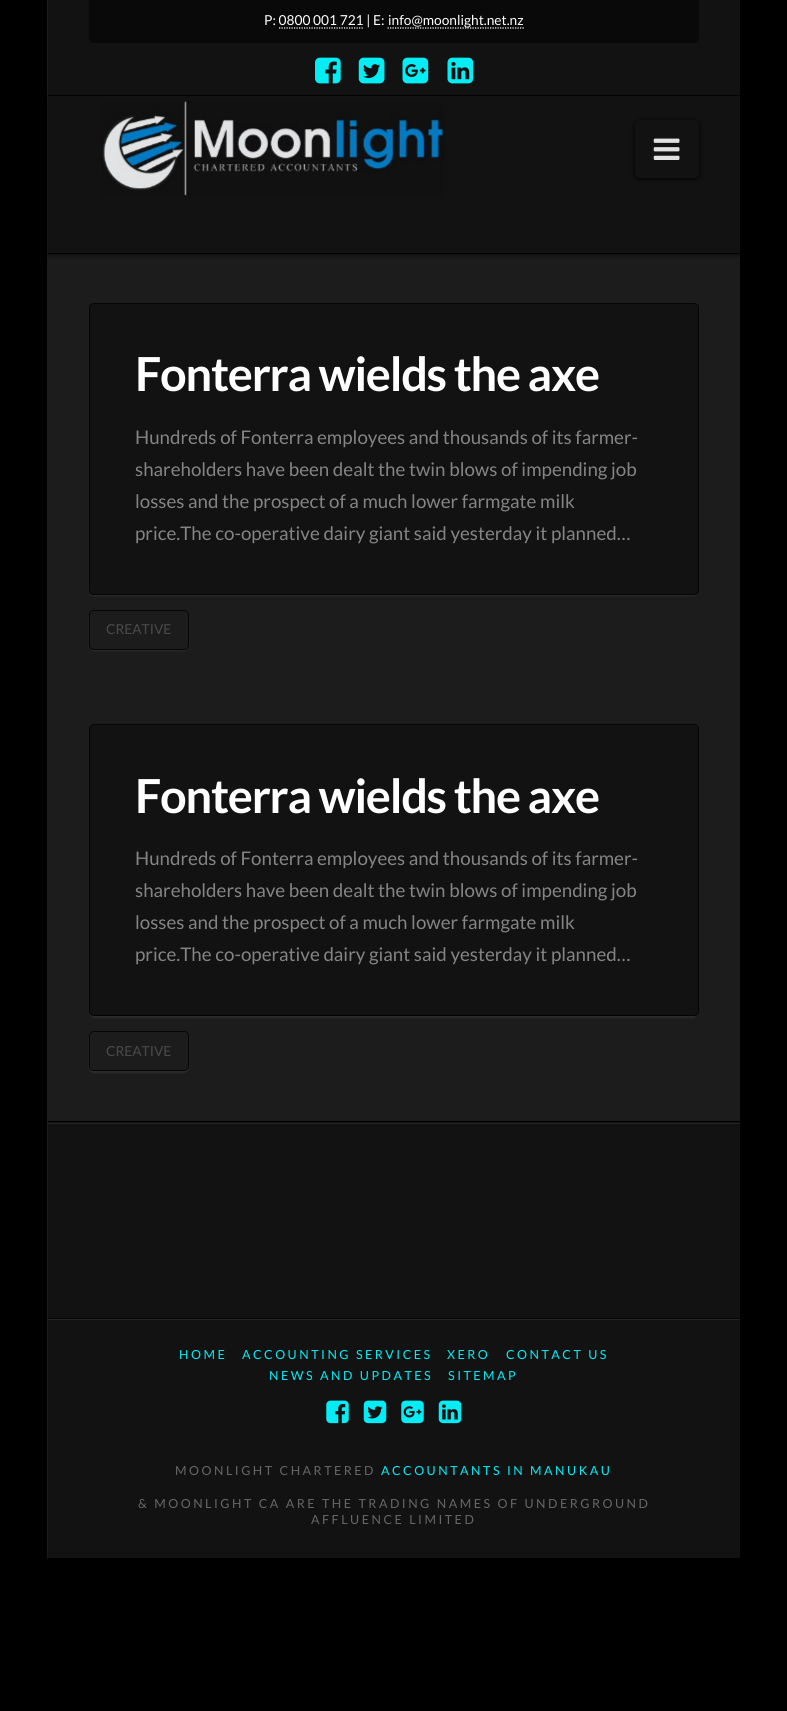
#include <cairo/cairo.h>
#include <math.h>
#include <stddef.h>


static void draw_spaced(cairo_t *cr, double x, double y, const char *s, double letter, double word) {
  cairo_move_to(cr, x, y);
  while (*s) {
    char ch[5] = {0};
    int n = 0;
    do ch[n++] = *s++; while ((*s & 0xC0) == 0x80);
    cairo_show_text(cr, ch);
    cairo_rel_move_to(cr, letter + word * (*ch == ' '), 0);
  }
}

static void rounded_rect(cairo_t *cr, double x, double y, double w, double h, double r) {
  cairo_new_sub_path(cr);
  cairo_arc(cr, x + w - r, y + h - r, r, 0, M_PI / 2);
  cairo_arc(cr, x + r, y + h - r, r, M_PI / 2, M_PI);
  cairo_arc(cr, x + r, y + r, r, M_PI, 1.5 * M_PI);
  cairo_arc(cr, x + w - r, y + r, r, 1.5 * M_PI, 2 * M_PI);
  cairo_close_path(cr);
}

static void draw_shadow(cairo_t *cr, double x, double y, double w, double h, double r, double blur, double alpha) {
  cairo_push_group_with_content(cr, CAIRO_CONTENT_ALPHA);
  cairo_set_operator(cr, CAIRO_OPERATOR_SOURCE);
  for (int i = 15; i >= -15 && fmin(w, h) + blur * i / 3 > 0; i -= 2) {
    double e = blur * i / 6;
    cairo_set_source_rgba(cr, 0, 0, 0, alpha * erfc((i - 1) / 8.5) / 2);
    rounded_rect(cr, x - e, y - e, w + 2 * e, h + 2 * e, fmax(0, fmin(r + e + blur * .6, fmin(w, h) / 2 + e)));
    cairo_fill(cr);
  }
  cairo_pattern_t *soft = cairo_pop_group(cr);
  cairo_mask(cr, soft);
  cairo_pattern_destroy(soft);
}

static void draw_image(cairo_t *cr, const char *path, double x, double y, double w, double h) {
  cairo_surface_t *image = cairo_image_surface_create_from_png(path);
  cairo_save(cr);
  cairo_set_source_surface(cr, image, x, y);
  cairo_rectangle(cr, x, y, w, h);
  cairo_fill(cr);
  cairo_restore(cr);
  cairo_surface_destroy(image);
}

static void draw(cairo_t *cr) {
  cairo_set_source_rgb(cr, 0, 0, 0);
  cairo_paint(cr);
  cairo_set_source_rgb(cr, 28 / 255.0, 28 / 255.0, 28 / 255.0);
  cairo_rectangle(cr, 47, 0, 693, 1558);
  cairo_fill(cr);
  cairo_set_source_rgb(cr, 0, 0, 0);
  draw_shadow(cr, 48, 99, 692, 157, 0, 2.5, 0.47);
  cairo_set_source_rgb(cr, 18 / 255.0, 18 / 255.0, 18 / 255.0);
  cairo_rectangle(cr, 48, 0, 692, 95);
  cairo_fill(cr);
  cairo_set_source_rgb(cr, 5 / 255.0, 5 / 255.0, 5 / 255.0);
  cairo_rectangle(cr, 48, 95, 692, 1);
  cairo_fill(cr);
  cairo_set_source_rgb(cr, 9 / 255.0, 9 / 255.0, 9 / 255.0);
  cairo_new_path(cr);
  cairo_move_to(cr, 89, 0);
  cairo_line_to(cr, 699, 0);
  cairo_line_to(cr, 699, 38);
  cairo_curve_to(cr, 699, 41, 697, 43, 694, 43);
  cairo_line_to(cr, 94, 43);
  cairo_curve_to(cr, 91, 43, 89, 41, 89, 38);
  cairo_close_path(cr);
  cairo_fill(cr);
  cairo_new_path(cr);
  cairo_move_to(cr, 387.5, 28);
  cairo_line_to(cr, 524, 28);
  cairo_set_source_rgb(cr, 1, 1, 1);
  cairo_set_line_width(cr, 1.2);
  cairo_set_dash(cr, (double[]){1.25, 1.25}, 2, 0);
  cairo_stroke(cr);
  cairo_new_path(cr);
  cairo_move_to(cr, 279, 28);
  cairo_line_to(cr, 364, 28);
  cairo_stroke(cr);
  draw_image(cr, "images/1.png", 315, 57, 26, 27);
  draw_image(cr, "images/2.png", 358, 57, 27, 27);
  draw_image(cr, "images/3.png", 402, 57, 27, 27);
  draw_image(cr, "images/4.png", 447, 57, 27, 27);
  cairo_set_source_rgb(cr, 18 / 255.0, 18 / 255.0, 18 / 255.0);
  cairo_rectangle(cr, 48, 96, 692, 157);
  cairo_fill(cr);
  cairo_set_source_rgb(cr, 0, 0, 0);
  cairo_rectangle(cr, 48, 253, 692, 1);
  cairo_fill(cr);
  draw_image(cr, "images/5.png", 101, 101, 344, 96);
  cairo_set_source_rgb(cr, 0, 0, 0);
  draw_shadow(cr, 635, 121, 64, 58, 5, 2.5, 1);
  cairo_set_source_rgb(cr, 18 / 255.0, 18 / 255.0, 18 / 255.0);
  rounded_rect(cr, 635, 120, 64, 58, 5);
  cairo_fill(cr);
  draw_image(cr, "images/6.png", 653, 138, 27, 22);
  cairo_set_source_rgb(cr, 1, 1, 1);
  draw_shadow(cr, 91, 309, 605, 287, 2.5, 1, 0.07);
  cairo_set_source_rgb(cr, 18 / 255.0, 18 / 255.0, 18 / 255.0);
  rounded_rect(cr, 89.5, 303.5, 609, 291, 4.5);
  cairo_fill_preserve(cr);
  cairo_set_source_rgb(cr, 5 / 255.0, 5 / 255.0, 5 / 255.0);
  cairo_set_line_width(cr, 1);
  cairo_set_dash(cr, NULL, 0, 0);
  cairo_stroke(cr);
  cairo_save(cr);
  cairo_set_fill_rule(cr, CAIRO_FILL_RULE_EVEN_ODD);
  cairo_new_path(cr);
  cairo_move_to(cr, 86, 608);
  cairo_line_to(cr, 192, 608);
  cairo_line_to(cr, 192, 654);
  cairo_line_to(cr, 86, 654);
  cairo_close_path(cr);
  cairo_move_to(cr, 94, 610);
  cairo_line_to(cr, 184, 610);
  cairo_curve_to(cr, 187, 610, 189, 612, 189, 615);
  cairo_line_to(cr, 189, 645);
  cairo_curve_to(cr, 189, 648, 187, 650, 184, 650);
  cairo_line_to(cr, 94, 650);
  cairo_curve_to(cr, 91, 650, 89, 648, 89, 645);
  cairo_line_to(cr, 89, 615);
  cairo_curve_to(cr, 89, 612, 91, 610, 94, 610);
  cairo_close_path(cr);
  cairo_clip(cr);
  cairo_set_source_rgb(cr, 1, 1, 1);
  draw_shadow(cr, 89, 611, 100, 40, 5, 0.5, 0.07);
  cairo_restore(cr);
  rounded_rect(cr, 89.5, 610.5, 99, 39, 4.5);
  cairo_set_source_rgba(cr, 0, 0, 0, 0.78);
  cairo_stroke(cr);
  cairo_set_source_rgb(cr, 1, 1, 1);
  draw_shadow(cr, 91, 730, 605, 288, 2.5, 1, 0.07);
  cairo_set_source_rgb(cr, 18 / 255.0, 18 / 255.0, 18 / 255.0);
  rounded_rect(cr, 89.5, 724.5, 609, 291, 4.5);
  cairo_fill_preserve(cr);
  cairo_set_source_rgb(cr, 5 / 255.0, 5 / 255.0, 5 / 255.0);
  cairo_stroke(cr);
  cairo_save(cr);
  cairo_set_fill_rule(cr, CAIRO_FILL_RULE_EVEN_ODD);
  cairo_new_path(cr);
  cairo_move_to(cr, 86, 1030);
  cairo_line_to(cr, 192, 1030);
  cairo_line_to(cr, 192, 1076);
  cairo_line_to(cr, 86, 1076);
  cairo_close_path(cr);
  cairo_move_to(cr, 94, 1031);
  cairo_line_to(cr, 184, 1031);
  cairo_curve_to(cr, 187, 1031, 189, 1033, 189, 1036);
  cairo_line_to(cr, 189, 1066);
  cairo_curve_to(cr, 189, 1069, 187, 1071, 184, 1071);
  cairo_line_to(cr, 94, 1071);
  cairo_curve_to(cr, 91, 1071, 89, 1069, 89, 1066);
  cairo_line_to(cr, 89, 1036);
  cairo_curve_to(cr, 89, 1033, 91, 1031, 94, 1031);
  cairo_close_path(cr);
  cairo_clip(cr);
  cairo_set_source_rgb(cr, 1, 1, 1);
  draw_shadow(cr, 89, 1033, 100, 40, 5, 0.5, 0.07);
  cairo_restore(cr);
  rounded_rect(cr, 89.5, 1031.5, 99, 39, 4.5);
  cairo_set_source_rgba(cr, 0, 0, 0, 0.78);
  cairo_stroke(cr);
  cairo_set_source_rgb(cr, 18 / 255.0, 18 / 255.0, 18 / 255.0);
  cairo_rectangle(cr, 48, 1122, 692, 196);
  cairo_fill(cr);
  cairo_set_source_rgb(cr, 36 / 255.0, 36 / 255.0, 36 / 255.0);
  cairo_rectangle(cr, 48, 1123, 692, 1);
  cairo_fill(cr);
  cairo_set_source_rgb(cr, 0, 0, 0);
  cairo_rectangle(cr, 48, 1121, 692, 1);
  cairo_fill(cr);
  cairo_set_source_rgb(cr, 18 / 255.0, 18 / 255.0, 18 / 255.0);
  cairo_rectangle(cr, 48, 1320, 692, 238);
  cairo_fill(cr);
  cairo_set_source_rgb(cr, 36 / 255.0, 36 / 255.0, 36 / 255.0);
  cairo_rectangle(cr, 48, 1319, 692, 1);
  cairo_fill(cr);
  cairo_set_source_rgb(cr, 5 / 255.0, 5 / 255.0, 5 / 255.0);
  cairo_rectangle(cr, 48, 1318, 692, 1);
  cairo_fill(cr);
  draw_image(cr, "images/7.png", 326, 1400, 23, 24);
  draw_image(cr, "images/8.png", 363, 1400, 24, 24);
  draw_image(cr, "images/9.png", 401, 1400, 23, 24);
  draw_image(cr, "images/10.png", 438, 1400, 24, 24);
  cairo_select_font_face(cr, "Lato", CAIRO_FONT_SLANT_NORMAL, CAIRO_FONT_WEIGHT_NORMAL);
  cairo_set_font_size(cr, 13.75);
  cairo_set_source_rgb(cr, 1, 1, 1);
  cairo_move_to(cr, 264, 25);
  cairo_show_text(cr, "P: 0800 001 721 | E:");
  cairo_move_to(cr, 388, 25);
  cairo_show_text(cr, "info@moonlight.net.nz");
  cairo_select_font_face(cr, "Lato", CAIRO_FONT_SLANT_NORMAL, CAIRO_FONT_WEIGHT_BOLD);
  cairo_set_font_size(cr, 46.9);
  draw_spaced(cr, 135, 391, "Fonterra wields the axe", -1.25, 0);
  cairo_select_font_face(cr, "Lato", CAIRO_FONT_SLANT_NORMAL, CAIRO_FONT_WEIGHT_NORMAL);
  cairo_set_font_size(cr, 18.75);
  cairo_set_source_rgb(cr, 132 / 255.0, 132 / 255.0, 132 / 255.0);
  cairo_move_to(cr, 135, 444);
  cairo_show_text(cr, "Hundreds of Fonterra employees and thousands of its farmer-");
  cairo_move_to(cr, 135, 476);
  cairo_show_text(cr, "shareholders have been dealt the twin blows of impending job");
  cairo_move_to(cr, 135, 508);
  cairo_show_text(cr, "losses and the prospect of a much lower farmgate milk");
  cairo_move_to(cr, 135, 540);
  cairo_show_text(cr, "price.The co-operative dairy giant said yesterday it planned…");
  cairo_set_font_size(cr, 13.75);
  cairo_set_source_rgb(cr, 73 / 255.0, 73 / 255.0, 73 / 255.0);
  cairo_move_to(cr, 106, 634);
  cairo_show_text(cr, "CREATIVE");
  cairo_select_font_face(cr, "Lato", CAIRO_FONT_SLANT_NORMAL, CAIRO_FONT_WEIGHT_BOLD);
  cairo_set_font_size(cr, 46.9);
  cairo_set_source_rgb(cr, 1, 1, 1);
  draw_spaced(cr, 135, 813, "Fonterra wields the axe", -1.25, 0);
  cairo_select_font_face(cr, "Lato", CAIRO_FONT_SLANT_NORMAL, CAIRO_FONT_WEIGHT_NORMAL);
  cairo_set_font_size(cr, 18.75);
  cairo_set_source_rgb(cr, 132 / 255.0, 132 / 255.0, 132 / 255.0);
  cairo_move_to(cr, 135, 865);
  cairo_show_text(cr, "Hundreds of Fonterra employees and thousands of its farmer-");
  cairo_move_to(cr, 135, 897);
  cairo_show_text(cr, "shareholders have been dealt the twin blows of impending job");
  cairo_move_to(cr, 135, 929);
  cairo_show_text(cr, "losses and the prospect of a much lower farmgate milk");
  cairo_move_to(cr, 135, 961);
  cairo_show_text(cr, "price.The co-operative dairy giant said yesterday it planned…");
  cairo_set_font_size(cr, 13.75);
  cairo_set_source_rgb(cr, 73 / 255.0, 73 / 255.0, 73 / 255.0);
  cairo_move_to(cr, 106, 1056);
  cairo_show_text(cr, "CREATIVE");
  cairo_set_font_size(cr, 12.5);
  cairo_set_source_rgb(cr, 4 / 255.0, 236 / 255.0, 244 / 255.0);
  draw_spaced(cr, 179, 1359, "HOME", 2.5, 0);
  draw_spaced(cr, 242, 1359, "ACCOUNTING SERVICES", 2.5, 0);
  draw_spaced(cr, 447, 1359, "XERO", 2.5, 0);
  draw_spaced(cr, 506, 1359, "CONTACT US", 2.5, 0);
  draw_spaced(cr, 269, 1380, "NEWS AND UPDATES", 2.5, 0);
  draw_spaced(cr, 448, 1380, "SITEMAP", 2.5, 0);
  cairo_set_source_rgb(cr, 102 / 255.0, 102 / 255.0, 102 / 255.0);
  draw_spaced(cr, 175, 1475, "MOONLIGHT CHARTERED", 2.5, 0);
  cairo_set_source_rgb(cr, 4 / 255.0, 236 / 255.0, 244 / 255.0);
  draw_spaced(cr, 381, 1475, "ACCOUNTANTS IN MANUKAU", 2.5, 0);
  cairo_set_source_rgb(cr, 102 / 255.0, 102 / 255.0, 102 / 255.0);
  draw_spaced(cr, 138, 1508, "& MOONLIGHT CA ARE THE TRADING NAMES OF UNDERGROUND", 2.5, 0);
  draw_spaced(cr, 311, 1524, "AFFLUENCE LIMITED", 2.5, 0);
}

int main(void) {
  cairo_surface_t *surface = cairo_image_surface_create(CAIRO_FORMAT_RGB24, 787, 1711);
  cairo_t *cr = cairo_create(surface);
  cairo_font_options_t *options = cairo_font_options_create();
  cairo_font_options_set_hint_metrics(options, CAIRO_HINT_METRICS_OFF);
  cairo_font_options_set_hint_style(options, CAIRO_HINT_STYLE_NONE);
  cairo_set_font_options(cr, options);
  cairo_set_miter_limit(cr, 4);
  draw(cr);
  cairo_surface_write_to_png(surface, "out.png");
  cairo_font_options_destroy(options);
  cairo_destroy(cr);
  cairo_surface_destroy(surface);
  return 0;
}
